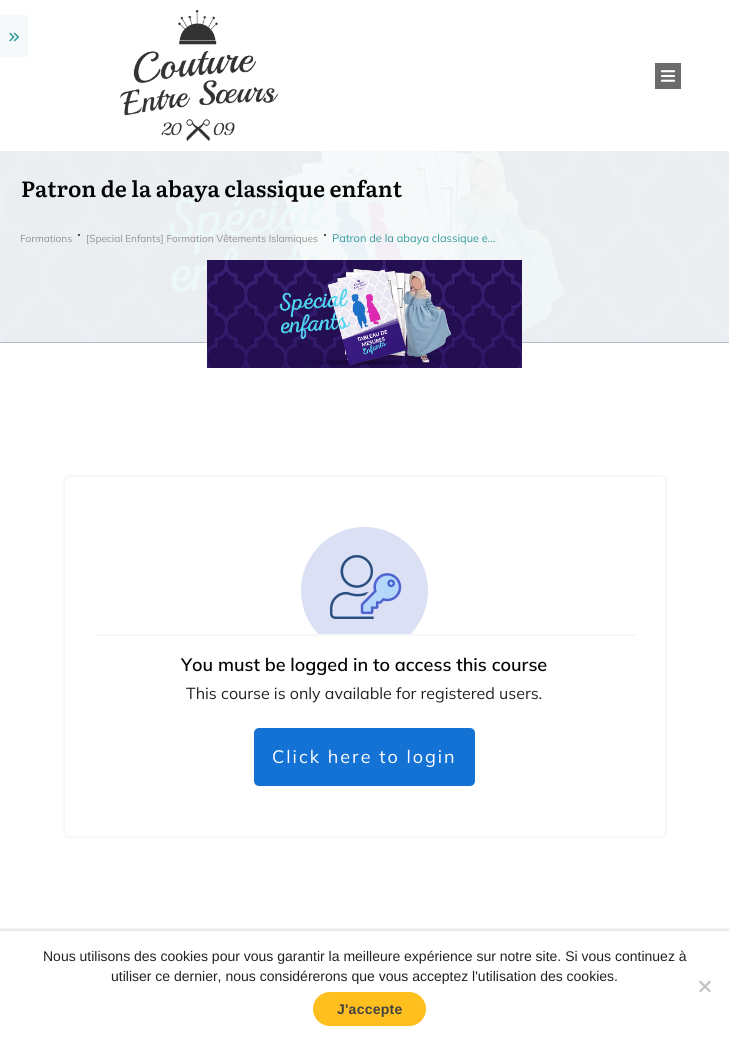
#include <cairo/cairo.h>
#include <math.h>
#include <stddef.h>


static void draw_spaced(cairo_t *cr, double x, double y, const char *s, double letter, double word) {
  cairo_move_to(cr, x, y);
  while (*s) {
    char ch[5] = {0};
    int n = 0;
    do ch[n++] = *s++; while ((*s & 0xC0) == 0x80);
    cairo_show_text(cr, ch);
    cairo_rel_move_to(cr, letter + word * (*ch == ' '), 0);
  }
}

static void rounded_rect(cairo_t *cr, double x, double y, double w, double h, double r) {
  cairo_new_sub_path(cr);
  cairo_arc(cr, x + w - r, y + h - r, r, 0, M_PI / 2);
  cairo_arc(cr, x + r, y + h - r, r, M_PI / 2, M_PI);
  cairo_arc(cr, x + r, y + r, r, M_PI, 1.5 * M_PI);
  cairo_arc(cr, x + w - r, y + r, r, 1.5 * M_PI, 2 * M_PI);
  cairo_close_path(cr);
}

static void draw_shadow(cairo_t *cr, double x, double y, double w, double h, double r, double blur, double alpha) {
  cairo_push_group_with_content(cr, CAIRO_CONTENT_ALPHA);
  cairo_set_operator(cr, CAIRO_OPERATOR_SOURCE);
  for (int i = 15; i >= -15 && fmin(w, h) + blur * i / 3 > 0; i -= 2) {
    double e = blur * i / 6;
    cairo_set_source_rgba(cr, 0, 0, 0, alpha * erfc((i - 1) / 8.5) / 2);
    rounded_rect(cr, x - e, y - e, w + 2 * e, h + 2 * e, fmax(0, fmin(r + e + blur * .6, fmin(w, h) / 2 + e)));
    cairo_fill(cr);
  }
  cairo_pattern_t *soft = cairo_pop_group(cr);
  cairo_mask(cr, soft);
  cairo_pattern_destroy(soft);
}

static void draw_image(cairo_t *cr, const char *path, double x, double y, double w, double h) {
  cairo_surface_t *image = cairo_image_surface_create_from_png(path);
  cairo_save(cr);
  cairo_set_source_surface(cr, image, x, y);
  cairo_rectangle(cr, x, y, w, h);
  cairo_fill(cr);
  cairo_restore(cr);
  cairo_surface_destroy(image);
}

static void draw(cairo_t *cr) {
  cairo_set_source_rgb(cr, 1, 1, 1);
  cairo_paint(cr);
  cairo_set_source_rgb(cr, 245 / 255.0, 249 / 255.0, 249 / 255.0);
  cairo_rectangle(cr, 0, 15, 28, 42);
  cairo_fill(cr);
  draw_image(cr, "images/1.png", 9, 32, 11, 10);
  draw_image(cr, "images/2.png", 120, 10, 158, 131);
  draw_image(cr, "images/3.png", 655, 63, 26, 26);
  draw_image(cr, "images/4.png", 0, 151, 729, 192);
  cairo_set_source_rgb(cr, 80 / 255.0, 81 / 255.0, 82 / 255.0);
  cairo_rectangle(cr, 78, 234, 2, 2);
  cairo_fill(cr);
  cairo_set_source_rgb(cr, 82 / 255.0, 83 / 255.0, 83 / 255.0);
  cairo_rectangle(cr, 324, 234, 2, 2);
  cairo_fill(cr);
  draw_image(cr, "images/5.png", 207, 260, 315, 108);
  cairo_set_source_rgb(cr, 0, 0, 0);
  draw_shadow(cr, 65, 477, 600, 359, 4, 2, 0.1);
  cairo_set_source_rgb(cr, 1, 1, 1);
  rounded_rect(cr, 65, 477, 600, 359, 4);
  cairo_fill(cr);
  draw_image(cr, "images/6.png", 301, 527, 127, 107);
  cairo_set_source_rgb(cr, 247 / 255.0, 247 / 255.0, 247 / 255.0);
  cairo_rectangle(cr, 95, 634, 540, 2);
  cairo_fill(cr);
  cairo_set_source_rgb(cr, 19 / 255.0, 114 / 255.0, 211 / 255.0);
  rounded_rect(cr, 254, 728, 221, 58, 5);
  cairo_fill(cr);
  cairo_save(cr);
  cairo_rectangle(cr, 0, 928, 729, 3);
  cairo_clip(cr);
  cairo_set_source_rgb(cr, 0, 0, 0);
  draw_shadow(cr, 0, 931, 729, 110, 0, 2.5, 0.25);
  cairo_restore(cr);
  cairo_set_source_rgb(cr, 192 / 255.0, 192 / 255.0, 192 / 255.0);
  cairo_new_path(cr);
  cairo_move_to(cr, 709.5, 980.5);
  cairo_line_to(cr, 711, 982);
  cairo_line_to(cr, 700.5, 992.5);
  cairo_line_to(cr, 699, 991);
  cairo_close_path(cr);
  cairo_fill(cr);
  cairo_new_path(cr);
  cairo_move_to(cr, 699, 982);
  cairo_line_to(cr, 700.5, 980.5);
  cairo_line_to(cr, 711, 991);
  cairo_line_to(cr, 709.5, 992.5);
  cairo_close_path(cr);
  cairo_fill(cr);
  cairo_set_source_rgb(cr, 1, 191 / 255.0, 31 / 255.0);
  rounded_rect(cr, 313, 992, 113, 34, 17);
  cairo_fill(cr);
  cairo_select_font_face(cr, "Literata SemiBold", CAIRO_FONT_SLANT_NORMAL, CAIRO_FONT_WEIGHT_NORMAL);
  cairo_set_font_size(cr, 22);
  cairo_set_source_rgb(cr, 4 / 255.0, 4 / 255.0, 4 / 255.0);
  cairo_move_to(cr, 21, 197);
  cairo_show_text(cr, "Patron de la abaya classique enfant");
  cairo_select_font_face(cr, "Mulish", CAIRO_FONT_SLANT_NORMAL, CAIRO_FONT_WEIGHT_NORMAL);
  cairo_set_font_size(cr, 10);
  cairo_set_source_rgb(cr, 147 / 255.0, 146 / 255.0, 146 / 255.0);
  cairo_move_to(cr, 20, 242);
  cairo_show_text(cr, "Formations");
  cairo_move_to(cr, 86, 242);
  cairo_show_text(cr, "[Special Enfants] Formation Vêtements Islamiques");
  cairo_set_font_size(cr, 11);
  cairo_set_source_rgb(cr, 51 / 255.0, 153 / 255.0, 153 / 255.0);
  cairo_move_to(cr, 332, 242);
  cairo_show_text(cr, "Patron de la abaya classique e…");
  cairo_select_font_face(cr, "Mulish SemiBold", CAIRO_FONT_SLANT_NORMAL, CAIRO_FONT_WEIGHT_NORMAL);
  cairo_set_font_size(cr, 18);
  cairo_set_source_rgb(cr, 4 / 255.0, 4 / 255.0, 4 / 255.0);
  cairo_move_to(cr, 181, 671);
  cairo_show_text(cr, "You must be logged in to access this course");
  cairo_select_font_face(cr, "Mulish", CAIRO_FONT_SLANT_NORMAL, CAIRO_FONT_WEIGHT_NORMAL);
  cairo_set_font_size(cr, 16);
  cairo_set_source_rgb(cr, 34 / 255.0, 34 / 255.0, 34 / 255.0);
  cairo_move_to(cr, 186, 699);
  cairo_show_text(cr, "This course is only available for registered users.");
  cairo_set_font_size(cr, 18);
  cairo_set_source_rgb(cr, 1, 1, 1);
  draw_spaced(cr, 272, 763, "Click here to login", 2, 0);
  cairo_select_font_face(cr, "Liberation Sans", CAIRO_FONT_SLANT_NORMAL, CAIRO_FONT_WEIGHT_NORMAL);
  cairo_set_font_size(cr, 14);
  cairo_set_source_rgb(cr, 34 / 255.0, 34 / 255.0, 34 / 255.0);
  cairo_move_to(cr, 43, 961);
  cairo_show_text(cr, "Nous utilisons des cookies pour vous garantir la meilleure expérience sur notre site. Si vous continuez à");
  cairo_move_to(cr, 111, 981);
  cairo_show_text(cr, "utiliser ce dernier, nous considérerons que vous acceptez l'utilisation des cookies.");
  cairo_select_font_face(cr, "Liberation Sans", CAIRO_FONT_SLANT_NORMAL, CAIRO_FONT_WEIGHT_BOLD);
  cairo_set_source_rgb(cr, 67 / 255.0, 67 / 255.0, 67 / 255.0);
  draw_spaced(cr, 337, 1014, "J'accepte", 0.25, 0);
}

int main(void) {
  cairo_surface_t *surface = cairo_image_surface_create(CAIRO_FORMAT_RGB24, 729, 1041);
  cairo_t *cr = cairo_create(surface);
  cairo_font_options_t *options = cairo_font_options_create();
  cairo_font_options_set_hint_metrics(options, CAIRO_HINT_METRICS_OFF);
  cairo_font_options_set_hint_style(options, CAIRO_HINT_STYLE_NONE);
  cairo_set_font_options(cr, options);
  cairo_set_miter_limit(cr, 4);
  draw(cr);
  cairo_surface_write_to_png(surface, "out.png");
  cairo_font_options_destroy(options);
  cairo_destroy(cr);
  cairo_surface_destroy(surface);
  return 0;
}
